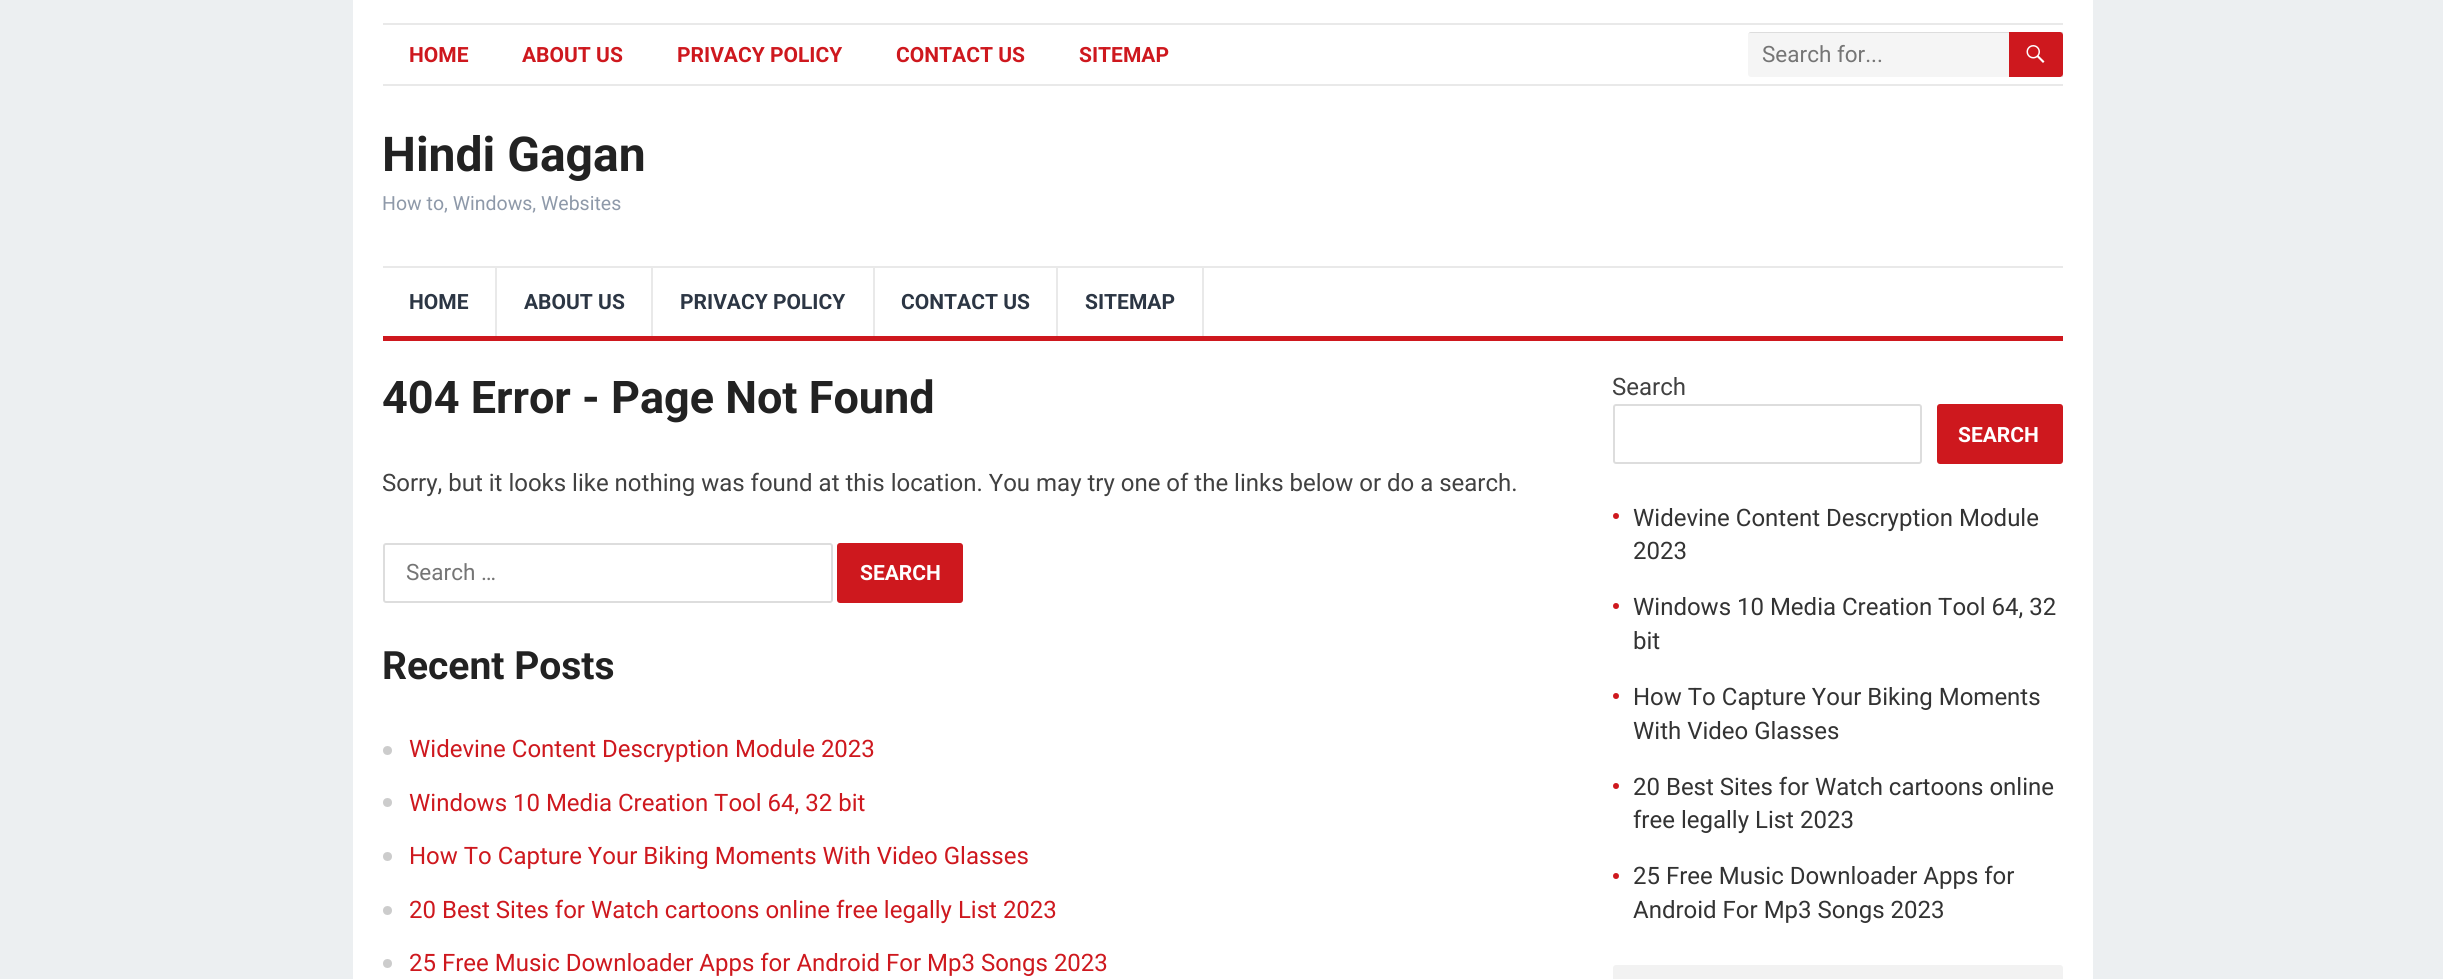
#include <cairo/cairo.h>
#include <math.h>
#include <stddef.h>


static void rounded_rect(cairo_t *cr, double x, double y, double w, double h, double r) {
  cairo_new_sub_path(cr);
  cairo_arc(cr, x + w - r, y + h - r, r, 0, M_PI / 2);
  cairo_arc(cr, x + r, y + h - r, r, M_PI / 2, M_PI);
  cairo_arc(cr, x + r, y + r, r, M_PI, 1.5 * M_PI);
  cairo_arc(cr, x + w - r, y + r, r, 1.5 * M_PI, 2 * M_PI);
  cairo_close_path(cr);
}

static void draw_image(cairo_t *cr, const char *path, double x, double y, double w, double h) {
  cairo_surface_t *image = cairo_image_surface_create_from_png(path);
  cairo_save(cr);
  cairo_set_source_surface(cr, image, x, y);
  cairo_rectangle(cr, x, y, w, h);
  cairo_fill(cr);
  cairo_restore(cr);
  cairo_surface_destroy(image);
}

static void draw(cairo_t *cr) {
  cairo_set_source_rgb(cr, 236 / 255.0, 239 / 255.0, 241 / 255.0);
  cairo_paint(cr);
  cairo_set_source_rgb(cr, 1, 1, 1);
  cairo_rectangle(cr, 353, 0, 1740, 979);
  cairo_fill(cr);
  cairo_set_source_rgb(cr, 233 / 255.0, 233 / 255.0, 233 / 255.0);
  cairo_rectangle(cr, 383, 23, 1680, 2);
  cairo_fill(cr);
  cairo_rectangle(cr, 383, 84, 1680, 2);
  cairo_fill(cr);
  cairo_set_source_rgb(cr, 245 / 255.0, 245 / 255.0, 245 / 255.0);
  cairo_new_path(cr);
  cairo_move_to(cr, 1751, 32);
  cairo_line_to(cr, 2063, 32);
  cairo_line_to(cr, 2063, 77);
  cairo_line_to(cr, 1751, 77);
  cairo_curve_to(cr, 1749.5, 77, 1748, 75.5, 1748, 74);
  cairo_line_to(cr, 1748, 35);
  cairo_curve_to(cr, 1748, 33.5, 1749.5, 32, 1751, 32);
  cairo_close_path(cr);
  cairo_fill(cr);
  cairo_set_source_rgb(cr, 221 / 255.0, 221 / 255.0, 221 / 255.0);
  cairo_new_path(cr);
  cairo_move_to(cr, 1750, 33);
  cairo_line_to(cr, 2062, 33);
  cairo_line_to(cr, 2062, 77);
  cairo_line_to(cr, 2063, 77);
  cairo_line_to(cr, 2063, 32);
  cairo_line_to(cr, 1751, 32);
  cairo_curve_to(cr, 1749, 32, 1748, 34, 1748, 36);
  cairo_curve_to(cr, 1748, 34, 1749, 33, 1750, 33);
  cairo_close_path(cr);
  cairo_fill(cr);
  cairo_set_source_rgb(cr, 206 / 255.0, 24 / 255.0, 30 / 255.0);
  cairo_new_path(cr);
  cairo_move_to(cr, 2009, 32);
  cairo_line_to(cr, 2060, 32);
  cairo_curve_to(cr, 2061.5, 32, 2063, 33.5, 2063, 35);
  cairo_line_to(cr, 2063, 74);
  cairo_curve_to(cr, 2063, 75.5, 2061.5, 77, 2060, 77);
  cairo_line_to(cr, 2009, 77);
  cairo_close_path(cr);
  cairo_fill(cr);
  draw_image(cr, "images/1.png", 2026, 45, 19, 18);
  cairo_set_source_rgb(cr, 233 / 255.0, 233 / 255.0, 233 / 255.0);
  cairo_rectangle(cr, 383, 266, 1680, 2);
  cairo_fill(cr);
  cairo_set_source_rgb(cr, 206 / 255.0, 24 / 255.0, 30 / 255.0);
  cairo_rectangle(cr, 383, 336, 1680, 5);
  cairo_fill(cr);
  cairo_set_source_rgb(cr, 233 / 255.0, 233 / 255.0, 233 / 255.0);
  cairo_rectangle(cr, 495, 267, 2, 69);
  cairo_fill(cr);
  cairo_rectangle(cr, 651, 267, 2, 69);
  cairo_fill(cr);
  cairo_rectangle(cr, 873, 267, 2, 69);
  cairo_fill(cr);
  cairo_rectangle(cr, 1056, 267, 2, 69);
  cairo_fill(cr);
  cairo_rectangle(cr, 1202, 267, 2, 69);
  cairo_fill(cr);
  rounded_rect(cr, 384, 544, 448, 58, 2);
  cairo_set_source_rgb(cr, 221 / 255.0, 221 / 255.0, 221 / 255.0);
  cairo_stroke(cr);
  cairo_set_source_rgb(cr, 206 / 255.0, 24 / 255.0, 30 / 255.0);
  rounded_rect(cr, 837, 543, 126, 60, 3);
  cairo_fill(cr);
  cairo_set_source_rgb(cr, 204 / 255.0, 204 / 255.0, 204 / 255.0);
  cairo_arc(cr, 387.5, 750.5, 4.5, 0, 2 * M_PI);
  cairo_fill(cr);
  cairo_arc(cr, 387.5, 802.5, 4.5, 0, 2 * M_PI);
  cairo_fill(cr);
  cairo_arc(cr, 387.5, 856.5, 4.5, 0, 2 * M_PI);
  cairo_fill(cr);
  cairo_arc(cr, 387.5, 910.5, 4.5, 0, 2 * M_PI);
  cairo_fill(cr);
  cairo_arc(cr, 387.5, 963.5, 4.5, 0, 2 * M_PI);
  cairo_fill(cr);
  rounded_rect(cr, 1614, 405, 307, 58, 2);
  cairo_set_source_rgb(cr, 221 / 255.0, 221 / 255.0, 221 / 255.0);
  cairo_stroke(cr);
  cairo_set_source_rgb(cr, 206 / 255.0, 24 / 255.0, 30 / 255.0);
  rounded_rect(cr, 1937, 404, 126, 60, 3);
  cairo_fill(cr);
  cairo_arc(cr, 1616, 516, 3, 0, 2 * M_PI);
  cairo_fill(cr);
  cairo_arc(cr, 1616, 606, 3, 0, 2 * M_PI);
  cairo_fill(cr);
  cairo_arc(cr, 1616, 696, 3, 0, 2 * M_PI);
  cairo_fill(cr);
  cairo_arc(cr, 1616, 786, 3, 0, 2 * M_PI);
  cairo_fill(cr);
  cairo_arc(cr, 1616, 876, 3, 0, 2 * M_PI);
  cairo_fill(cr);
  cairo_set_source_rgb(cr, 242 / 255.0, 242 / 255.0, 242 / 255.0);
  rounded_rect(cr, 1613, 965, 450, 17, 3);
  cairo_fill(cr);
  cairo_select_font_face(cr, "Roboto", CAIRO_FONT_SLANT_NORMAL, CAIRO_FONT_WEIGHT_BOLD);
  cairo_set_font_size(cr, 21);
  cairo_set_source_rgb(cr, 206 / 255.0, 24 / 255.0, 30 / 255.0);
  cairo_move_to(cr, 409, 62);
  cairo_show_text(cr, "HOME");
  cairo_move_to(cr, 522, 62);
  cairo_show_text(cr, "ABOUT US");
  cairo_move_to(cr, 677, 62);
  cairo_show_text(cr, "PRIVACY POLICY");
  cairo_move_to(cr, 896, 62);
  cairo_show_text(cr, "CONTACT US");
  cairo_move_to(cr, 1079, 62);
  cairo_show_text(cr, "SITEMAP");
  cairo_select_font_face(cr, "Roboto", CAIRO_FONT_SLANT_NORMAL, CAIRO_FONT_WEIGHT_NORMAL);
  cairo_set_font_size(cr, 22.5);
  cairo_set_source_rgb(cr, 117 / 255.0, 117 / 255.0, 117 / 255.0);
  cairo_move_to(cr, 1762, 62);
  cairo_show_text(cr, "Search for...");
  cairo_select_font_face(cr, "Roboto", CAIRO_FONT_SLANT_NORMAL, CAIRO_FONT_WEIGHT_BOLD);
  cairo_set_font_size(cr, 48);
  cairo_set_source_rgb(cr, 34 / 255.0, 34 / 255.0, 34 / 255.0);
  cairo_move_to(cr, 382, 171);
  cairo_show_text(cr, "Hindi Gagan");
  cairo_select_font_face(cr, "Roboto", CAIRO_FONT_SLANT_NORMAL, CAIRO_FONT_WEIGHT_NORMAL);
  cairo_set_font_size(cr, 19.5);
  cairo_set_source_rgb(cr, 142 / 255.0, 153 / 255.0, 169 / 255.0);
  cairo_move_to(cr, 382, 210);
  cairo_show_text(cr, "How to, Windows, Websites");
  cairo_select_font_face(cr, "Roboto", CAIRO_FONT_SLANT_NORMAL, CAIRO_FONT_WEIGHT_BOLD);
  cairo_set_font_size(cr, 21);
  cairo_set_source_rgb(cr, 44 / 255.0, 54 / 255.0, 68 / 255.0);
  cairo_move_to(cr, 409, 309);
  cairo_show_text(cr, "HOME");
  cairo_move_to(cr, 524, 309);
  cairo_show_text(cr, "ABOUT US");
  cairo_move_to(cr, 680, 309);
  cairo_show_text(cr, "PRIVACY POLICY");
  cairo_move_to(cr, 901, 309);
  cairo_show_text(cr, "CONTACT US");
  cairo_move_to(cr, 1085, 309);
  cairo_show_text(cr, "SITEMAP");
  cairo_set_font_size(cr, 45);
  cairo_set_source_rgb(cr, 34 / 255.0, 34 / 255.0, 34 / 255.0);
  cairo_move_to(cr, 382, 413);
  cairo_show_text(cr, "404 Error - Page Not Found");
  cairo_select_font_face(cr, "Roboto", CAIRO_FONT_SLANT_NORMAL, CAIRO_FONT_WEIGHT_NORMAL);
  cairo_set_font_size(cr, 24);
  cairo_set_source_rgb(cr, 65 / 255.0, 65 / 255.0, 65 / 255.0);
  cairo_move_to(cr, 382, 491);
  cairo_show_text(cr, "Sorry, but it looks like nothing was found at this location. You may try one of the links below or do a search.");
  cairo_set_font_size(cr, 22.5);
  cairo_set_source_rgb(cr, 117 / 255.0, 117 / 255.0, 117 / 255.0);
  cairo_move_to(cr, 406, 580);
  cairo_show_text(cr, "Search …");
  cairo_select_font_face(cr, "Roboto", CAIRO_FONT_SLANT_NORMAL, CAIRO_FONT_WEIGHT_BOLD);
  cairo_set_font_size(cr, 21);
  cairo_set_source_rgb(cr, 1, 1, 1);
  cairo_move_to(cr, 860, 580);
  cairo_show_text(cr, "SEARCH");
  cairo_set_font_size(cr, 39);
  cairo_set_source_rgb(cr, 34 / 255.0, 34 / 255.0, 34 / 255.0);
  cairo_move_to(cr, 382, 679);
  cairo_show_text(cr, "Recent Posts");
  cairo_select_font_face(cr, "Roboto", CAIRO_FONT_SLANT_NORMAL, CAIRO_FONT_WEIGHT_NORMAL);
  cairo_set_font_size(cr, 24);
  cairo_set_source_rgb(cr, 206 / 255.0, 24 / 255.0, 30 / 255.0);
  cairo_move_to(cr, 409, 757);
  cairo_show_text(cr, "Widevine Content Descryption Module 2023");
  cairo_move_to(cr, 409, 811);
  cairo_show_text(cr, "Windows 10 Media Creation Tool 64, 32 bit");
  cairo_move_to(cr, 409, 864);
  cairo_show_text(cr, "How To Capture Your Biking Moments With Video Glasses");
  cairo_move_to(cr, 409, 918);
  cairo_show_text(cr, "20 Best Sites for Watch cartoons online free legally List 2023");
  cairo_move_to(cr, 409, 971);
  cairo_show_text(cr, "25 Free Music Downloader Apps for Android For Mp3 Songs 2023");
  cairo_set_source_rgb(cr, 65 / 255.0, 65 / 255.0, 65 / 255.0);
  cairo_move_to(cr, 1612, 395);
  cairo_show_text(cr, "Search");
  cairo_select_font_face(cr, "Roboto", CAIRO_FONT_SLANT_NORMAL, CAIRO_FONT_WEIGHT_BOLD);
  cairo_set_font_size(cr, 21);
  cairo_set_source_rgb(cr, 1, 1, 1);
  cairo_move_to(cr, 1958, 442);
  cairo_show_text(cr, "SEARCH");
  cairo_select_font_face(cr, "Roboto", CAIRO_FONT_SLANT_NORMAL, CAIRO_FONT_WEIGHT_NORMAL);
  cairo_set_font_size(cr, 24);
  cairo_set_source_rgb(cr, 51 / 255.0, 51 / 255.0, 51 / 255.0);
  cairo_move_to(cr, 1633, 526);
  cairo_show_text(cr, "Widevine Content Descryption Module");
  cairo_move_to(cr, 1633, 559);
  cairo_show_text(cr, "2023");
  cairo_move_to(cr, 1633, 615);
  cairo_show_text(cr, "Windows 10 Media Creation Tool 64, 32");
  cairo_move_to(cr, 1633, 649);
  cairo_show_text(cr, "bit");
  cairo_move_to(cr, 1633, 705);
  cairo_show_text(cr, "How To Capture Your Biking Moments");
  cairo_move_to(cr, 1633, 739);
  cairo_show_text(cr, "With Video Glasses");
  cairo_move_to(cr, 1633, 795);
  cairo_show_text(cr, "20 Best Sites for Watch cartoons online");
  cairo_move_to(cr, 1633, 828);
  cairo_show_text(cr, "free legally List 2023");
  cairo_move_to(cr, 1633, 884);
  cairo_show_text(cr, "25 Free Music Downloader Apps for");
  cairo_move_to(cr, 1633, 918);
  cairo_show_text(cr, "Android For Mp3 Songs 2023");
}

int main(void) {
  cairo_surface_t *surface = cairo_image_surface_create(CAIRO_FORMAT_RGB24, 2443, 979);
  cairo_t *cr = cairo_create(surface);
  cairo_font_options_t *options = cairo_font_options_create();
  cairo_font_options_set_hint_metrics(options, CAIRO_HINT_METRICS_OFF);
  cairo_font_options_set_hint_style(options, CAIRO_HINT_STYLE_NONE);
  cairo_set_font_options(cr, options);
  cairo_set_miter_limit(cr, 4);
  draw(cr);
  cairo_surface_write_to_png(surface, "out.png");
  cairo_font_options_destroy(options);
  cairo_destroy(cr);
  cairo_surface_destroy(surface);
  return 0;
}
